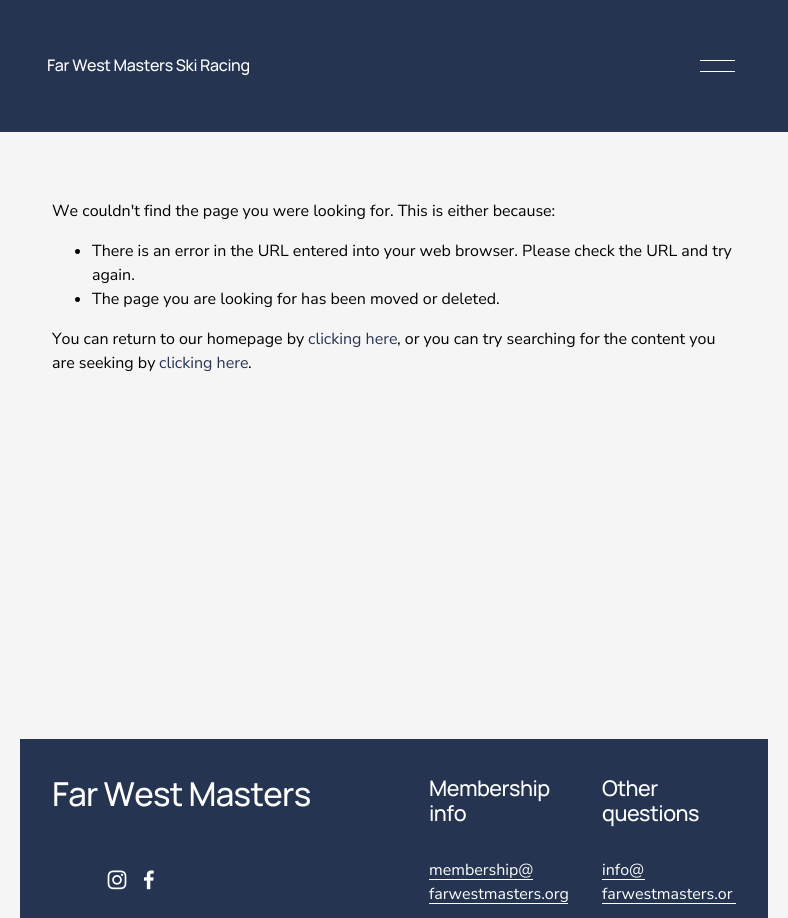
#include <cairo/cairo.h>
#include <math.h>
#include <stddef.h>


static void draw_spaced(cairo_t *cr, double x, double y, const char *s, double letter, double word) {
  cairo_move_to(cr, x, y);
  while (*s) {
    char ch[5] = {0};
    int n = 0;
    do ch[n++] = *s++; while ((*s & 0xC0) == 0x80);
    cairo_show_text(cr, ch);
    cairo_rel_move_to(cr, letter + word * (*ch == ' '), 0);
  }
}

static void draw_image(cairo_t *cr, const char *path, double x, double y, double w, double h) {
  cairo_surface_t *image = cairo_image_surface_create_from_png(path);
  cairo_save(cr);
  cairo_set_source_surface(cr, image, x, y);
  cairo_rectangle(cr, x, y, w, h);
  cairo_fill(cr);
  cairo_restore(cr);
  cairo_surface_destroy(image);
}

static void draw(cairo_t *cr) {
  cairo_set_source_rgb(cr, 245 / 255.0, 245 / 255.0, 245 / 255.0);
  cairo_paint(cr);
  cairo_set_source_rgb(cr, 37 / 255.0, 53 / 255.0, 81 / 255.0);
  cairo_rectangle(cr, 0, 0, 788, 132);
  cairo_fill(cr);
  cairo_set_source_rgb(cr, 1, 1, 1);
  cairo_rectangle(cr, 700, 60, 35, 1);
  cairo_fill(cr);
  cairo_rectangle(cr, 700, 71, 35, 1);
  cairo_fill(cr);
  cairo_set_source_rgb(cr, 0, 0, 0);
  cairo_arc(cr, 77.5, 251.5, 2.5, 0, 2 * M_PI);
  cairo_fill(cr);
  cairo_arc(cr, 77.5, 299.5, 2.5, 0, 2 * M_PI);
  cairo_fill(cr);
  cairo_set_source_rgb(cr, 37 / 255.0, 53 / 255.0, 81 / 255.0);
  cairo_rectangle(cr, 20, 739, 748, 179);
  cairo_fill(cr);
  cairo_set_source_rgb(cr, 1, 1, 1);
  cairo_rectangle(cr, 429, 879, 104, 1);
  cairo_fill(cr);
  cairo_rectangle(cr, 429, 903, 139, 1);
  cairo_fill(cr);
  cairo_rectangle(cr, 602, 879, 43, 1);
  cairo_fill(cr);
  cairo_rectangle(cr, 602, 903, 134, 1);
  cairo_fill(cr);
  draw_image(cr, "images/1.png", 107, 870, 20, 20);
  draw_image(cr, "images/2.png", 144, 870, 10, 20);
  cairo_select_font_face(cr, "Manrope Medium", CAIRO_FONT_SLANT_NORMAL, CAIRO_FONT_WEIGHT_NORMAL);
  cairo_set_font_size(cr, 16);
  draw_spaced(cr, 47, 71, "Far West Masters Ski Racing", -0.3, 0);
  cairo_select_font_face(cr, "Nunito Sans", CAIRO_FONT_SLANT_NORMAL, CAIRO_FONT_WEIGHT_NORMAL);
  cairo_set_source_rgb(cr, 0, 0, 0);
  cairo_move_to(cr, 52, 216);
  cairo_show_text(cr, "We couldn't find the page you were looking for. This is either because:");
  cairo_move_to(cr, 92, 256);
  cairo_show_text(cr, "There is an error in the URL entered into your web browser. Please check the URL and try");
  cairo_move_to(cr, 92, 280);
  cairo_show_text(cr, "again.");
  cairo_move_to(cr, 92, 304);
  cairo_show_text(cr, "The page you are looking for has been moved or deleted.");
  cairo_move_to(cr, 52, 344);
  cairo_show_text(cr, "You can return to our homepage by");
  cairo_set_source_rgb(cr, 37 / 255.0, 53 / 255.0, 81 / 255.0);
  cairo_move_to(cr, 308, 344);
  cairo_show_text(cr, "clicking here");
  cairo_set_source_rgb(cr, 0, 0, 0);
  cairo_move_to(cr, 397, 344);
  cairo_show_text(cr, ", or you can try searching for the content you");
  cairo_move_to(cr, 52, 368);
  cairo_show_text(cr, "are seeking by");
  cairo_set_source_rgb(cr, 37 / 255.0, 53 / 255.0, 81 / 255.0);
  cairo_move_to(cr, 159, 368);
  cairo_show_text(cr, "clicking here");
  cairo_set_source_rgb(cr, 0, 0, 0);
  cairo_move_to(cr, 248, 368);
  cairo_show_text(cr, ".");
  cairo_select_font_face(cr, "Manrope Medium", CAIRO_FONT_SLANT_NORMAL, CAIRO_FONT_WEIGHT_NORMAL);
  cairo_set_font_size(cr, 33);
  cairo_set_source_rgb(cr, 1, 1, 1);
  draw_spaced(cr, 52, 806, "Far West Masters", -0.7, 0);
  cairo_set_font_size(cr, 21.5);
  draw_spaced(cr, 429, 796, "Membership", -0.5, 0);
  draw_spaced(cr, 429, 821, "info", -0.5, 0);
  cairo_select_font_face(cr, "Nunito Sans", CAIRO_FONT_SLANT_NORMAL, CAIRO_FONT_WEIGHT_NORMAL);
  cairo_set_font_size(cr, 16);
  cairo_move_to(cr, 429, 875);
  cairo_show_text(cr, "membership@");
  cairo_move_to(cr, 429, 899);
  cairo_show_text(cr, "farwestmasters.org");
  cairo_select_font_face(cr, "Manrope Medium", CAIRO_FONT_SLANT_NORMAL, CAIRO_FONT_WEIGHT_NORMAL);
  cairo_set_font_size(cr, 21.5);
  draw_spaced(cr, 602, 796, "Other", -0.5, 0);
  draw_spaced(cr, 602, 821, "questions", -0.5, 0);
  cairo_select_font_face(cr, "Nunito Sans", CAIRO_FONT_SLANT_NORMAL, CAIRO_FONT_WEIGHT_NORMAL);
  cairo_set_font_size(cr, 16);
  cairo_move_to(cr, 602, 875);
  cairo_show_text(cr, "info@");
  cairo_move_to(cr, 602, 899);
  cairo_show_text(cr, "farwestmasters.or");
}

int main(void) {
  cairo_surface_t *surface = cairo_image_surface_create(CAIRO_FORMAT_RGB24, 788, 918);
  cairo_t *cr = cairo_create(surface);
  cairo_font_options_t *options = cairo_font_options_create();
  cairo_font_options_set_hint_metrics(options, CAIRO_HINT_METRICS_OFF);
  cairo_font_options_set_hint_style(options, CAIRO_HINT_STYLE_NONE);
  cairo_set_font_options(cr, options);
  cairo_set_miter_limit(cr, 4);
  draw(cr);
  cairo_surface_write_to_png(surface, "out.png");
  cairo_font_options_destroy(options);
  cairo_destroy(cr);
  cairo_surface_destroy(surface);
  return 0;
}
